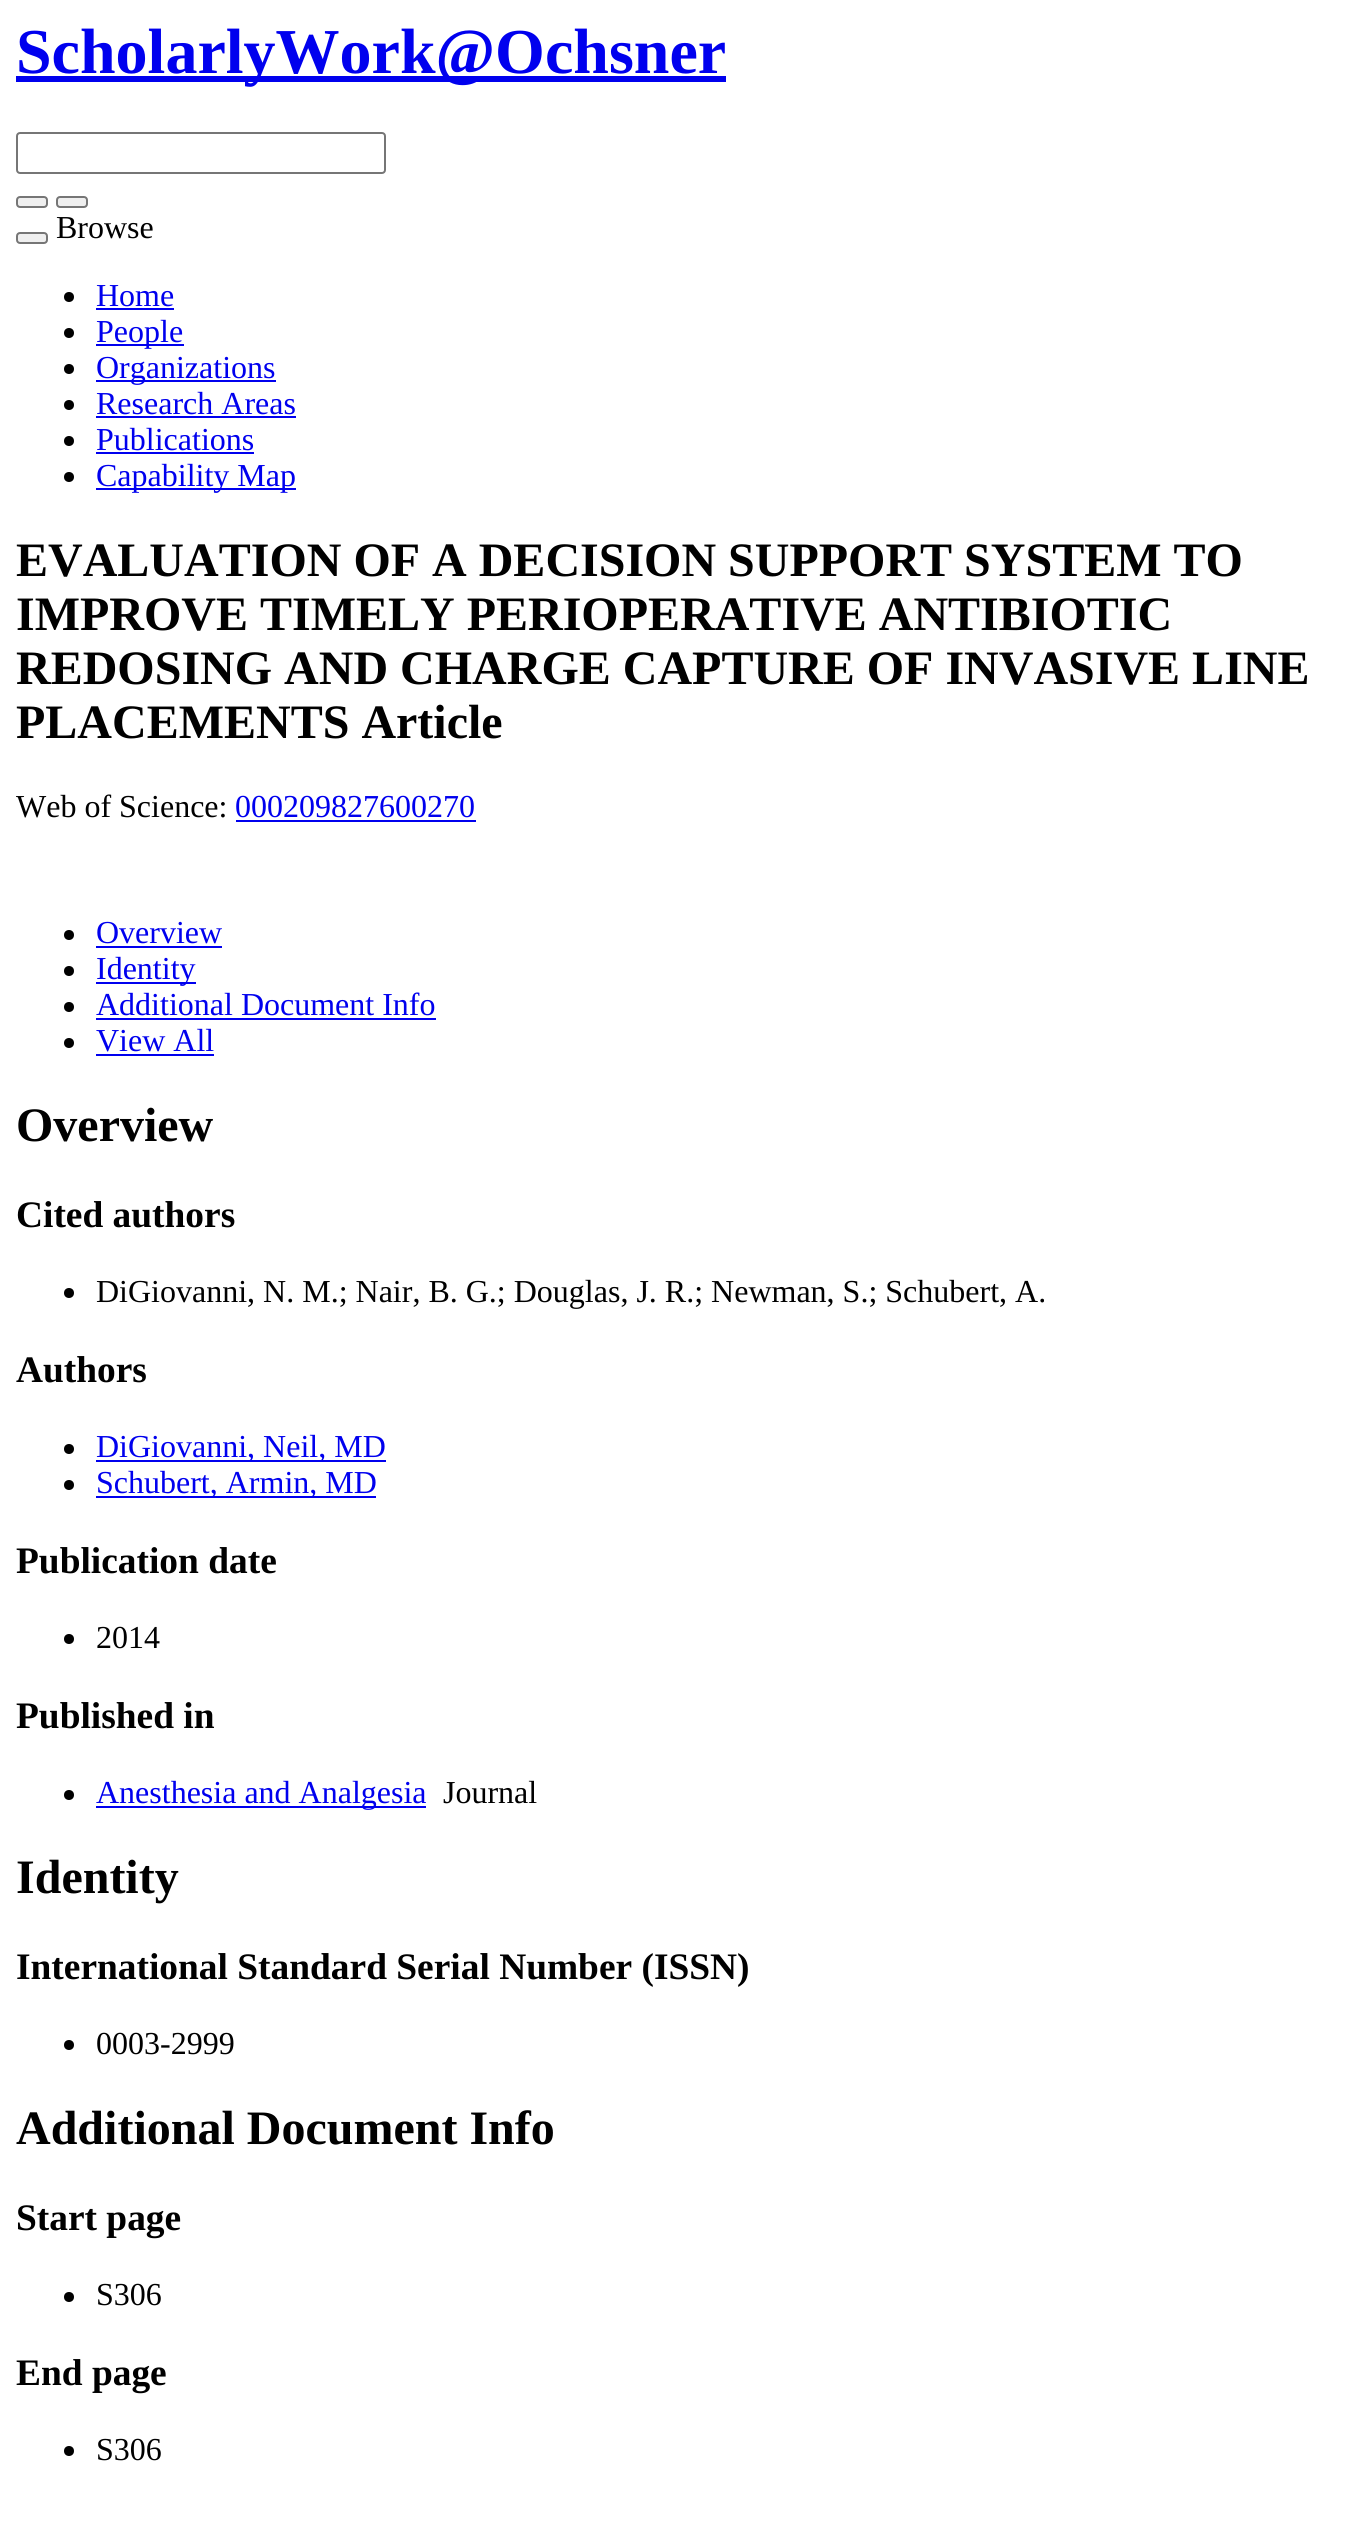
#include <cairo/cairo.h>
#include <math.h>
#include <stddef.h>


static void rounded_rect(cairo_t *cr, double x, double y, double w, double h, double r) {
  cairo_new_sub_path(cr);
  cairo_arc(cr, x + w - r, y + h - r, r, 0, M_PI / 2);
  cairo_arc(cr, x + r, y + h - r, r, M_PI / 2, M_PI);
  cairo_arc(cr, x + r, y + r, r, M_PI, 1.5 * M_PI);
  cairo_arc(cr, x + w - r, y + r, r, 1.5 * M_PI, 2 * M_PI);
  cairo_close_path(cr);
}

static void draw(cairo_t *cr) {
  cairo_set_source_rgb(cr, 1, 1, 1);
  cairo_paint(cr);
  cairo_set_source_rgb(cr, 0, 0, 238 / 255.0);
  cairo_rectangle(cr, 16, 76, 710, 6);
  cairo_fill(cr);
  rounded_rect(cr, 17, 133, 368, 40, 3);
  cairo_set_source_rgb(cr, 118 / 255.0, 118 / 255.0, 118 / 255.0);
  cairo_stroke(cr);
  cairo_set_source_rgb(cr, 239 / 255.0, 239 / 255.0, 239 / 255.0);
  rounded_rect(cr, 17, 197, 30, 10, 3);
  cairo_fill_preserve(cr);
  cairo_set_source_rgb(cr, 118 / 255.0, 118 / 255.0, 118 / 255.0);
  cairo_stroke(cr);
  cairo_set_source_rgb(cr, 239 / 255.0, 239 / 255.0, 239 / 255.0);
  rounded_rect(cr, 57, 197, 30, 10, 3);
  cairo_fill_preserve(cr);
  cairo_set_source_rgb(cr, 118 / 255.0, 118 / 255.0, 118 / 255.0);
  cairo_stroke(cr);
  cairo_set_source_rgb(cr, 239 / 255.0, 239 / 255.0, 239 / 255.0);
  rounded_rect(cr, 17, 233, 30, 10, 3);
  cairo_fill_preserve(cr);
  cairo_set_source_rgb(cr, 118 / 255.0, 118 / 255.0, 118 / 255.0);
  cairo_stroke(cr);
  cairo_set_source_rgb(cr, 0, 0, 0);
  cairo_arc(cr, 69, 297, 5, 0, 2 * M_PI);
  cairo_fill(cr);
  cairo_set_source_rgb(cr, 0, 0, 238 / 255.0);
  cairo_rectangle(cr, 96, 308, 78, 2);
  cairo_fill(cr);
  cairo_set_source_rgb(cr, 0, 0, 0);
  cairo_arc(cr, 69, 333, 5, 0, 2 * M_PI);
  cairo_fill(cr);
  cairo_set_source_rgb(cr, 0, 0, 238 / 255.0);
  cairo_rectangle(cr, 96, 344, 88, 2);
  cairo_fill(cr);
  cairo_set_source_rgb(cr, 0, 0, 0);
  cairo_arc(cr, 69, 369, 5, 0, 2 * M_PI);
  cairo_fill(cr);
  cairo_set_source_rgb(cr, 0, 0, 238 / 255.0);
  cairo_rectangle(cr, 96, 380, 180, 2);
  cairo_fill(cr);
  cairo_set_source_rgb(cr, 0, 0, 0);
  cairo_arc(cr, 69, 405, 5, 0, 2 * M_PI);
  cairo_fill(cr);
  cairo_set_source_rgb(cr, 0, 0, 238 / 255.0);
  cairo_rectangle(cr, 96, 416, 200, 2);
  cairo_fill(cr);
  cairo_set_source_rgb(cr, 0, 0, 0);
  cairo_arc(cr, 69, 441, 5, 0, 2 * M_PI);
  cairo_fill(cr);
  cairo_set_source_rgb(cr, 0, 0, 238 / 255.0);
  cairo_rectangle(cr, 96, 452, 158, 2);
  cairo_fill(cr);
  cairo_set_source_rgb(cr, 0, 0, 0);
  cairo_arc(cr, 69, 477, 5, 0, 2 * M_PI);
  cairo_fill(cr);
  cairo_set_source_rgb(cr, 0, 0, 238 / 255.0);
  cairo_rectangle(cr, 96, 488, 200, 2);
  cairo_fill(cr);
  cairo_rectangle(cr, 236, 820, 240, 2);
  cairo_fill(cr);
  cairo_set_source_rgb(cr, 0, 0, 0);
  cairo_arc(cr, 69, 935, 5, 0, 2 * M_PI);
  cairo_fill(cr);
  cairo_set_source_rgb(cr, 0, 0, 238 / 255.0);
  cairo_rectangle(cr, 96, 946, 126, 2);
  cairo_fill(cr);
  cairo_set_source_rgb(cr, 0, 0, 0);
  cairo_arc(cr, 69, 971, 5, 0, 2 * M_PI);
  cairo_fill(cr);
  cairo_set_source_rgb(cr, 0, 0, 238 / 255.0);
  cairo_rectangle(cr, 96, 982, 100, 2);
  cairo_fill(cr);
  cairo_set_source_rgb(cr, 0, 0, 0);
  cairo_arc(cr, 69, 1007, 5, 0, 2 * M_PI);
  cairo_fill(cr);
  cairo_set_source_rgb(cr, 0, 0, 238 / 255.0);
  cairo_rectangle(cr, 96, 1018, 340, 2);
  cairo_fill(cr);
  cairo_set_source_rgb(cr, 0, 0, 0);
  cairo_arc(cr, 69, 1043, 5, 0, 2 * M_PI);
  cairo_fill(cr);
  cairo_set_source_rgb(cr, 0, 0, 238 / 255.0);
  cairo_rectangle(cr, 96, 1054, 118, 2);
  cairo_fill(cr);
  cairo_set_source_rgb(cr, 0, 0, 0);
  cairo_arc(cr, 69, 1293, 5, 0, 2 * M_PI);
  cairo_fill(cr);
  cairo_arc(cr, 69, 1449, 5, 0, 2 * M_PI);
  cairo_fill(cr);
  cairo_set_source_rgb(cr, 0, 0, 238 / 255.0);
  cairo_rectangle(cr, 96, 1460, 290, 2);
  cairo_fill(cr);
  cairo_set_source_rgb(cr, 0, 0, 0);
  cairo_arc(cr, 69, 1485, 5, 0, 2 * M_PI);
  cairo_fill(cr);
  cairo_set_source_rgb(cr, 0, 0, 238 / 255.0);
  cairo_rectangle(cr, 96, 1496, 280, 2);
  cairo_fill(cr);
  cairo_set_source_rgb(cr, 0, 0, 0);
  cairo_arc(cr, 69, 1639, 5, 0, 2 * M_PI);
  cairo_fill(cr);
  cairo_arc(cr, 69, 1795, 5, 0, 2 * M_PI);
  cairo_fill(cr);
  cairo_set_source_rgb(cr, 0, 0, 238 / 255.0);
  cairo_rectangle(cr, 96, 1806, 330, 2);
  cairo_fill(cr);
  cairo_set_source_rgb(cr, 0, 0, 0);
  cairo_arc(cr, 69, 2045, 5, 0, 2 * M_PI);
  cairo_fill(cr);
  cairo_arc(cr, 69, 2297, 5, 0, 2 * M_PI);
  cairo_fill(cr);
  cairo_arc(cr, 69, 2451, 5, 0, 2 * M_PI);
  cairo_fill(cr);
  cairo_select_font_face(cr, "Liberation Serif", CAIRO_FONT_SLANT_NORMAL, CAIRO_FONT_WEIGHT_BOLD);
  cairo_set_font_size(cr, 64);
  cairo_set_source_rgb(cr, 0, 0, 238 / 255.0);
  cairo_move_to(cr, 16, 73);
  cairo_show_text(cr, "ScholarlyWork@Ochsner");
  cairo_select_font_face(cr, "Liberation Serif", CAIRO_FONT_SLANT_NORMAL, CAIRO_FONT_WEIGHT_NORMAL);
  cairo_set_font_size(cr, 32);
  cairo_set_source_rgb(cr, 0, 0, 0);
  cairo_move_to(cr, 56, 238);
  cairo_show_text(cr, "Browse");
  cairo_set_source_rgb(cr, 0, 0, 238 / 255.0);
  cairo_move_to(cr, 96, 306);
  cairo_show_text(cr, "Home");
  cairo_move_to(cr, 96, 342);
  cairo_show_text(cr, "People");
  cairo_move_to(cr, 96, 378);
  cairo_show_text(cr, "Organizations");
  cairo_move_to(cr, 96, 414);
  cairo_show_text(cr, "Research Areas");
  cairo_move_to(cr, 96, 450);
  cairo_show_text(cr, "Publications");
  cairo_move_to(cr, 96, 486);
  cairo_show_text(cr, "Capability Map");
  cairo_select_font_face(cr, "Liberation Serif", CAIRO_FONT_SLANT_NORMAL, CAIRO_FONT_WEIGHT_BOLD);
  cairo_set_font_size(cr, 48);
  cairo_set_source_rgb(cr, 0, 0, 0);
  cairo_move_to(cr, 16, 576);
  cairo_show_text(cr, "EVALUATION OF A DECISION SUPPORT SYSTEM TO");
  cairo_move_to(cr, 16, 630);
  cairo_show_text(cr, "IMPROVE TIMELY PERIOPERATIVE ANTIBIOTIC");
  cairo_move_to(cr, 16, 684);
  cairo_show_text(cr, "REDOSING AND CHARGE CAPTURE OF INVASIVE LINE");
  cairo_move_to(cr, 16, 738);
  cairo_show_text(cr, "PLACEMENTS Article");
  cairo_select_font_face(cr, "Liberation Serif", CAIRO_FONT_SLANT_NORMAL, CAIRO_FONT_WEIGHT_NORMAL);
  cairo_set_font_size(cr, 32);
  cairo_move_to(cr, 16, 817);
  cairo_show_text(cr, "Web of Science:");
  cairo_set_source_rgb(cr, 0, 0, 238 / 255.0);
  cairo_move_to(cr, 235, 817);
  cairo_show_text(cr, "000209827600270");
  cairo_move_to(cr, 96, 943);
  cairo_show_text(cr, "Overview");
  cairo_move_to(cr, 96, 979);
  cairo_show_text(cr, "Identity");
  cairo_move_to(cr, 96, 1015);
  cairo_show_text(cr, "Additional Document Info");
  cairo_move_to(cr, 96, 1051);
  cairo_show_text(cr, "View All");
  cairo_select_font_face(cr, "Liberation Serif", CAIRO_FONT_SLANT_NORMAL, CAIRO_FONT_WEIGHT_BOLD);
  cairo_set_font_size(cr, 48);
  cairo_set_source_rgb(cr, 0, 0, 0);
  cairo_move_to(cr, 16, 1141);
  cairo_show_text(cr, "Overview");
  cairo_set_font_size(cr, 37.4);
  cairo_move_to(cr, 16, 1227);
  cairo_show_text(cr, "Cited authors");
  cairo_select_font_face(cr, "Liberation Serif", CAIRO_FONT_SLANT_NORMAL, CAIRO_FONT_WEIGHT_NORMAL);
  cairo_set_font_size(cr, 32);
  cairo_move_to(cr, 96, 1302);
  cairo_show_text(cr, "DiGiovanni, N. M.; Nair, B. G.; Douglas, J. R.; Newman, S.; Schubert, A.");
  cairo_select_font_face(cr, "Liberation Serif", CAIRO_FONT_SLANT_NORMAL, CAIRO_FONT_WEIGHT_BOLD);
  cairo_set_font_size(cr, 37.4);
  cairo_move_to(cr, 16, 1382);
  cairo_show_text(cr, "Authors");
  cairo_select_font_face(cr, "Liberation Serif", CAIRO_FONT_SLANT_NORMAL, CAIRO_FONT_WEIGHT_NORMAL);
  cairo_set_font_size(cr, 32);
  cairo_set_source_rgb(cr, 0, 0, 238 / 255.0);
  cairo_move_to(cr, 96, 1457);
  cairo_show_text(cr, "DiGiovanni, Neil, MD");
  cairo_move_to(cr, 96, 1493);
  cairo_show_text(cr, "Schubert, Armin, MD");
  cairo_select_font_face(cr, "Liberation Serif", CAIRO_FONT_SLANT_NORMAL, CAIRO_FONT_WEIGHT_BOLD);
  cairo_set_font_size(cr, 37.4);
  cairo_set_source_rgb(cr, 0, 0, 0);
  cairo_move_to(cr, 16, 1573);
  cairo_show_text(cr, "Publication date");
  cairo_select_font_face(cr, "Liberation Serif", CAIRO_FONT_SLANT_NORMAL, CAIRO_FONT_WEIGHT_NORMAL);
  cairo_set_font_size(cr, 32);
  cairo_move_to(cr, 96, 1648);
  cairo_show_text(cr, "2014");
  cairo_select_font_face(cr, "Liberation Serif", CAIRO_FONT_SLANT_NORMAL, CAIRO_FONT_WEIGHT_BOLD);
  cairo_set_font_size(cr, 37.4);
  cairo_move_to(cr, 16, 1728);
  cairo_show_text(cr, "Published in");
  cairo_select_font_face(cr, "Liberation Serif", CAIRO_FONT_SLANT_NORMAL, CAIRO_FONT_WEIGHT_NORMAL);
  cairo_set_font_size(cr, 32);
  cairo_set_source_rgb(cr, 0, 0, 238 / 255.0);
  cairo_move_to(cr, 96, 1803);
  cairo_show_text(cr, "Anesthesia and Analgesia");
  cairo_set_source_rgb(cr, 0, 0, 0);
  cairo_move_to(cr, 443, 1803);
  cairo_show_text(cr, "Journal");
  cairo_select_font_face(cr, "Liberation Serif", CAIRO_FONT_SLANT_NORMAL, CAIRO_FONT_WEIGHT_BOLD);
  cairo_set_font_size(cr, 48);
  cairo_move_to(cr, 16, 1893);
  cairo_show_text(cr, "Identity");
  cairo_set_font_size(cr, 37.4);
  cairo_move_to(cr, 16, 1979);
  cairo_show_text(cr, "International Standard Serial Number (ISSN)");
  cairo_select_font_face(cr, "Liberation Serif", CAIRO_FONT_SLANT_NORMAL, CAIRO_FONT_WEIGHT_NORMAL);
  cairo_set_font_size(cr, 32);
  cairo_move_to(cr, 96, 2054);
  cairo_show_text(cr, "0003-2999");
  cairo_select_font_face(cr, "Liberation Serif", CAIRO_FONT_SLANT_NORMAL, CAIRO_FONT_WEIGHT_BOLD);
  cairo_set_font_size(cr, 48);
  cairo_move_to(cr, 16, 2144);
  cairo_show_text(cr, "Additional Document Info");
  cairo_set_font_size(cr, 37.4);
  cairo_move_to(cr, 16, 2230);
  cairo_show_text(cr, "Start page");
  cairo_select_font_face(cr, "Liberation Serif", CAIRO_FONT_SLANT_NORMAL, CAIRO_FONT_WEIGHT_NORMAL);
  cairo_set_font_size(cr, 32);
  cairo_move_to(cr, 96, 2305);
  cairo_show_text(cr, "S306");
  cairo_select_font_face(cr, "Liberation Serif", CAIRO_FONT_SLANT_NORMAL, CAIRO_FONT_WEIGHT_BOLD);
  cairo_set_font_size(cr, 37.4);
  cairo_move_to(cr, 16, 2385);
  cairo_show_text(cr, "End page");
  cairo_select_font_face(cr, "Liberation Serif", CAIRO_FONT_SLANT_NORMAL, CAIRO_FONT_WEIGHT_NORMAL);
  cairo_set_font_size(cr, 32);
  cairo_move_to(cr, 96, 2460);
  cairo_show_text(cr, "S306");
}

int main(void) {
  cairo_surface_t *surface = cairo_image_surface_create(CAIRO_FORMAT_RGB24, 1349, 2522);
  cairo_t *cr = cairo_create(surface);
  cairo_font_options_t *options = cairo_font_options_create();
  cairo_font_options_set_hint_metrics(options, CAIRO_HINT_METRICS_OFF);
  cairo_font_options_set_hint_style(options, CAIRO_HINT_STYLE_NONE);
  cairo_set_font_options(cr, options);
  cairo_set_miter_limit(cr, 4);
  draw(cr);
  cairo_surface_write_to_png(surface, "out.png");
  cairo_font_options_destroy(options);
  cairo_destroy(cr);
  cairo_surface_destroy(surface);
  return 0;
}
